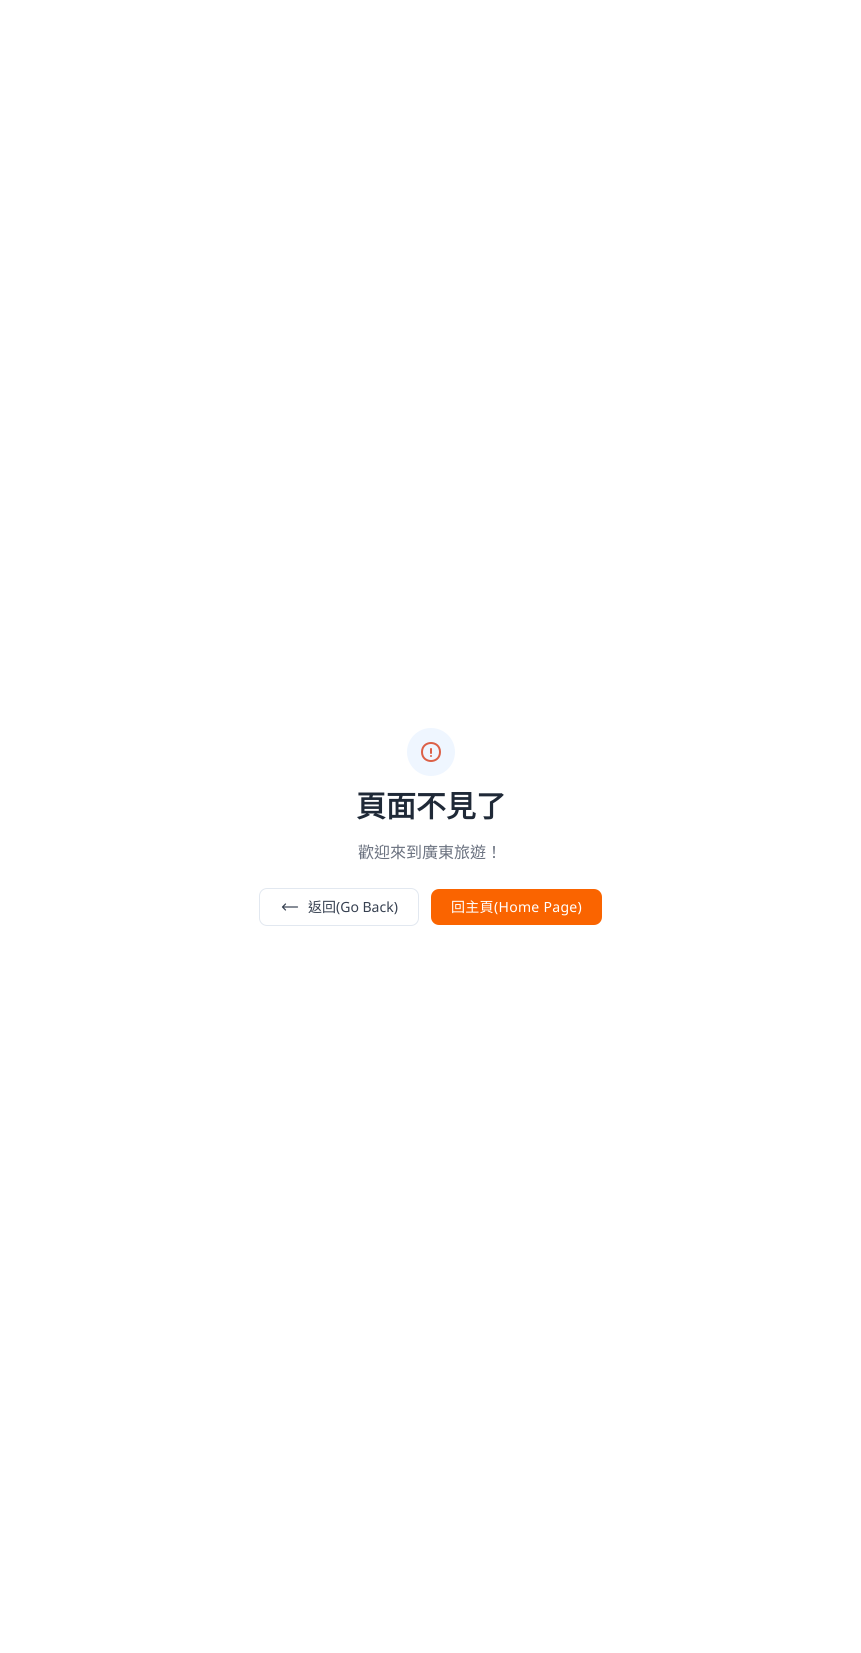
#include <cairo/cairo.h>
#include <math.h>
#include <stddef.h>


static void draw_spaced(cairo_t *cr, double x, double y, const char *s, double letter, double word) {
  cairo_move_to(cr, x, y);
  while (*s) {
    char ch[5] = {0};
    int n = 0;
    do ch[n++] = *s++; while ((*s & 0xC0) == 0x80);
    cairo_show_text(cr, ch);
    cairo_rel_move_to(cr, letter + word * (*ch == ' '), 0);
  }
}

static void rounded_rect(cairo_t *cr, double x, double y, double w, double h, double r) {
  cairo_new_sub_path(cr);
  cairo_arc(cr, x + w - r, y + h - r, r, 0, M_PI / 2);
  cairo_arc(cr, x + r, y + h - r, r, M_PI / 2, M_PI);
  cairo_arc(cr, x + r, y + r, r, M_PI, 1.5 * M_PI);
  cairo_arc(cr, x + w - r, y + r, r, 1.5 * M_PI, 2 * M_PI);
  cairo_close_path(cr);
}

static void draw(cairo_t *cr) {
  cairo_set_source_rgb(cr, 1, 1, 1);
  cairo_paint(cr);
  cairo_set_source_rgb(cr, 239 / 255.0, 246 / 255.0, 1);
  cairo_arc(cr, 431, 752, 24, 0, 2 * M_PI);
  cairo_fill(cr);
  cairo_new_path(cr);
  cairo_move_to(cr, 431, 749);
  cairo_line_to(cr, 431, 753);
  cairo_move_to(cr, 440, 752);
  cairo_curve_to(cr, 440, 764, 422, 764, 422, 752);
  cairo_curve_to(cr, 422, 740, 440, 740, 440, 752);
  cairo_close_path(cr);
  cairo_move_to(cr, 431, 756);
  cairo_line_to(cr, 431, 756);
  cairo_close_path(cr);
  cairo_set_source_rgb(cr, 220 / 255.0, 96 / 255.0, 71 / 255.0);
  cairo_set_line_cap(cr, CAIRO_LINE_CAP_ROUND);
  cairo_set_line_join(cr, CAIRO_LINE_JOIN_ROUND);
  cairo_stroke(cr);
  rounded_rect(cr, 259.5, 888.5, 159, 37, 7.5);
  cairo_set_source_rgb(cr, 226 / 255.0, 232 / 255.0, 240 / 255.0);
  cairo_set_line_width(cr, 1);
  cairo_set_line_cap(cr, CAIRO_LINE_CAP_BUTT);
  cairo_set_line_join(cr, CAIRO_LINE_JOIN_MITER);
  cairo_stroke(cr);
  cairo_new_path(cr);
  cairo_move_to(cr, 285.5, 910);
  cairo_line_to(cr, 282.5, 907);
  cairo_move_to(cr, 282.5, 907);
  cairo_line_to(cr, 285.5, 904);
  cairo_move_to(cr, 282.5, 907);
  cairo_line_to(cr, 297.5, 907);
  cairo_set_source_rgb(cr, 55 / 255.0, 65 / 255.0, 81 / 255.0);
  cairo_set_line_width(cr, 1.2);
  cairo_set_line_cap(cr, CAIRO_LINE_CAP_ROUND);
  cairo_set_line_join(cr, CAIRO_LINE_JOIN_ROUND);
  cairo_stroke(cr);
  cairo_set_source_rgb(cr, 250 / 255.0, 100 / 255.0, 0);
  rounded_rect(cr, 431, 889, 171, 36, 8);
  cairo_fill(cr);
  cairo_select_font_face(cr, "Noto Sans CJK HK", CAIRO_FONT_SLANT_NORMAL, CAIRO_FONT_WEIGHT_BOLD);
  cairo_set_font_size(cr, 30);
  cairo_set_source_rgb(cr, 31 / 255.0, 41 / 255.0, 55 / 255.0);
  cairo_move_to(cr, 356, 817);
  cairo_show_text(cr, "頁面不見了");
  cairo_select_font_face(cr, "Noto Sans CJK HK", CAIRO_FONT_SLANT_NORMAL, CAIRO_FONT_WEIGHT_NORMAL);
  cairo_set_font_size(cr, 16);
  cairo_set_source_rgb(cr, 107 / 255.0, 114 / 255.0, 128 / 255.0);
  cairo_move_to(cr, 358, 858);
  cairo_show_text(cr, "歡迎來到廣東旅遊！");
  cairo_set_font_size(cr, 14);
  cairo_set_source_rgb(cr, 55 / 255.0, 65 / 255.0, 81 / 255.0);
  cairo_move_to(cr, 308, 912);
  cairo_show_text(cr, "返回");
  cairo_select_font_face(cr, "Noto Sans", CAIRO_FONT_SLANT_NORMAL, CAIRO_FONT_WEIGHT_NORMAL);
  cairo_move_to(cr, 336, 912);
  cairo_show_text(cr, "(Go Back)");
  cairo_select_font_face(cr, "Noto Sans CJK HK", CAIRO_FONT_SLANT_NORMAL, CAIRO_FONT_WEIGHT_NORMAL);
  cairo_set_source_rgb(cr, 1, 1, 1);
  draw_spaced(cr, 451, 912, "回主頁", 0.3, 0);
  cairo_select_font_face(cr, "Noto Sans", CAIRO_FONT_SLANT_NORMAL, CAIRO_FONT_WEIGHT_NORMAL);
  draw_spaced(cr, 494, 912, "(Home Page)", 0.3, 0);
}

int main(void) {
  cairo_surface_t *surface = cairo_image_surface_create(CAIRO_FORMAT_RGB24, 861, 1653);
  cairo_t *cr = cairo_create(surface);
  cairo_font_options_t *options = cairo_font_options_create();
  cairo_font_options_set_hint_metrics(options, CAIRO_HINT_METRICS_OFF);
  cairo_font_options_set_hint_style(options, CAIRO_HINT_STYLE_NONE);
  cairo_set_font_options(cr, options);
  cairo_set_miter_limit(cr, 4);
  draw(cr);
  cairo_surface_write_to_png(surface, "out.png");
  cairo_font_options_destroy(options);
  cairo_destroy(cr);
  cairo_surface_destroy(surface);
  return 0;
}
